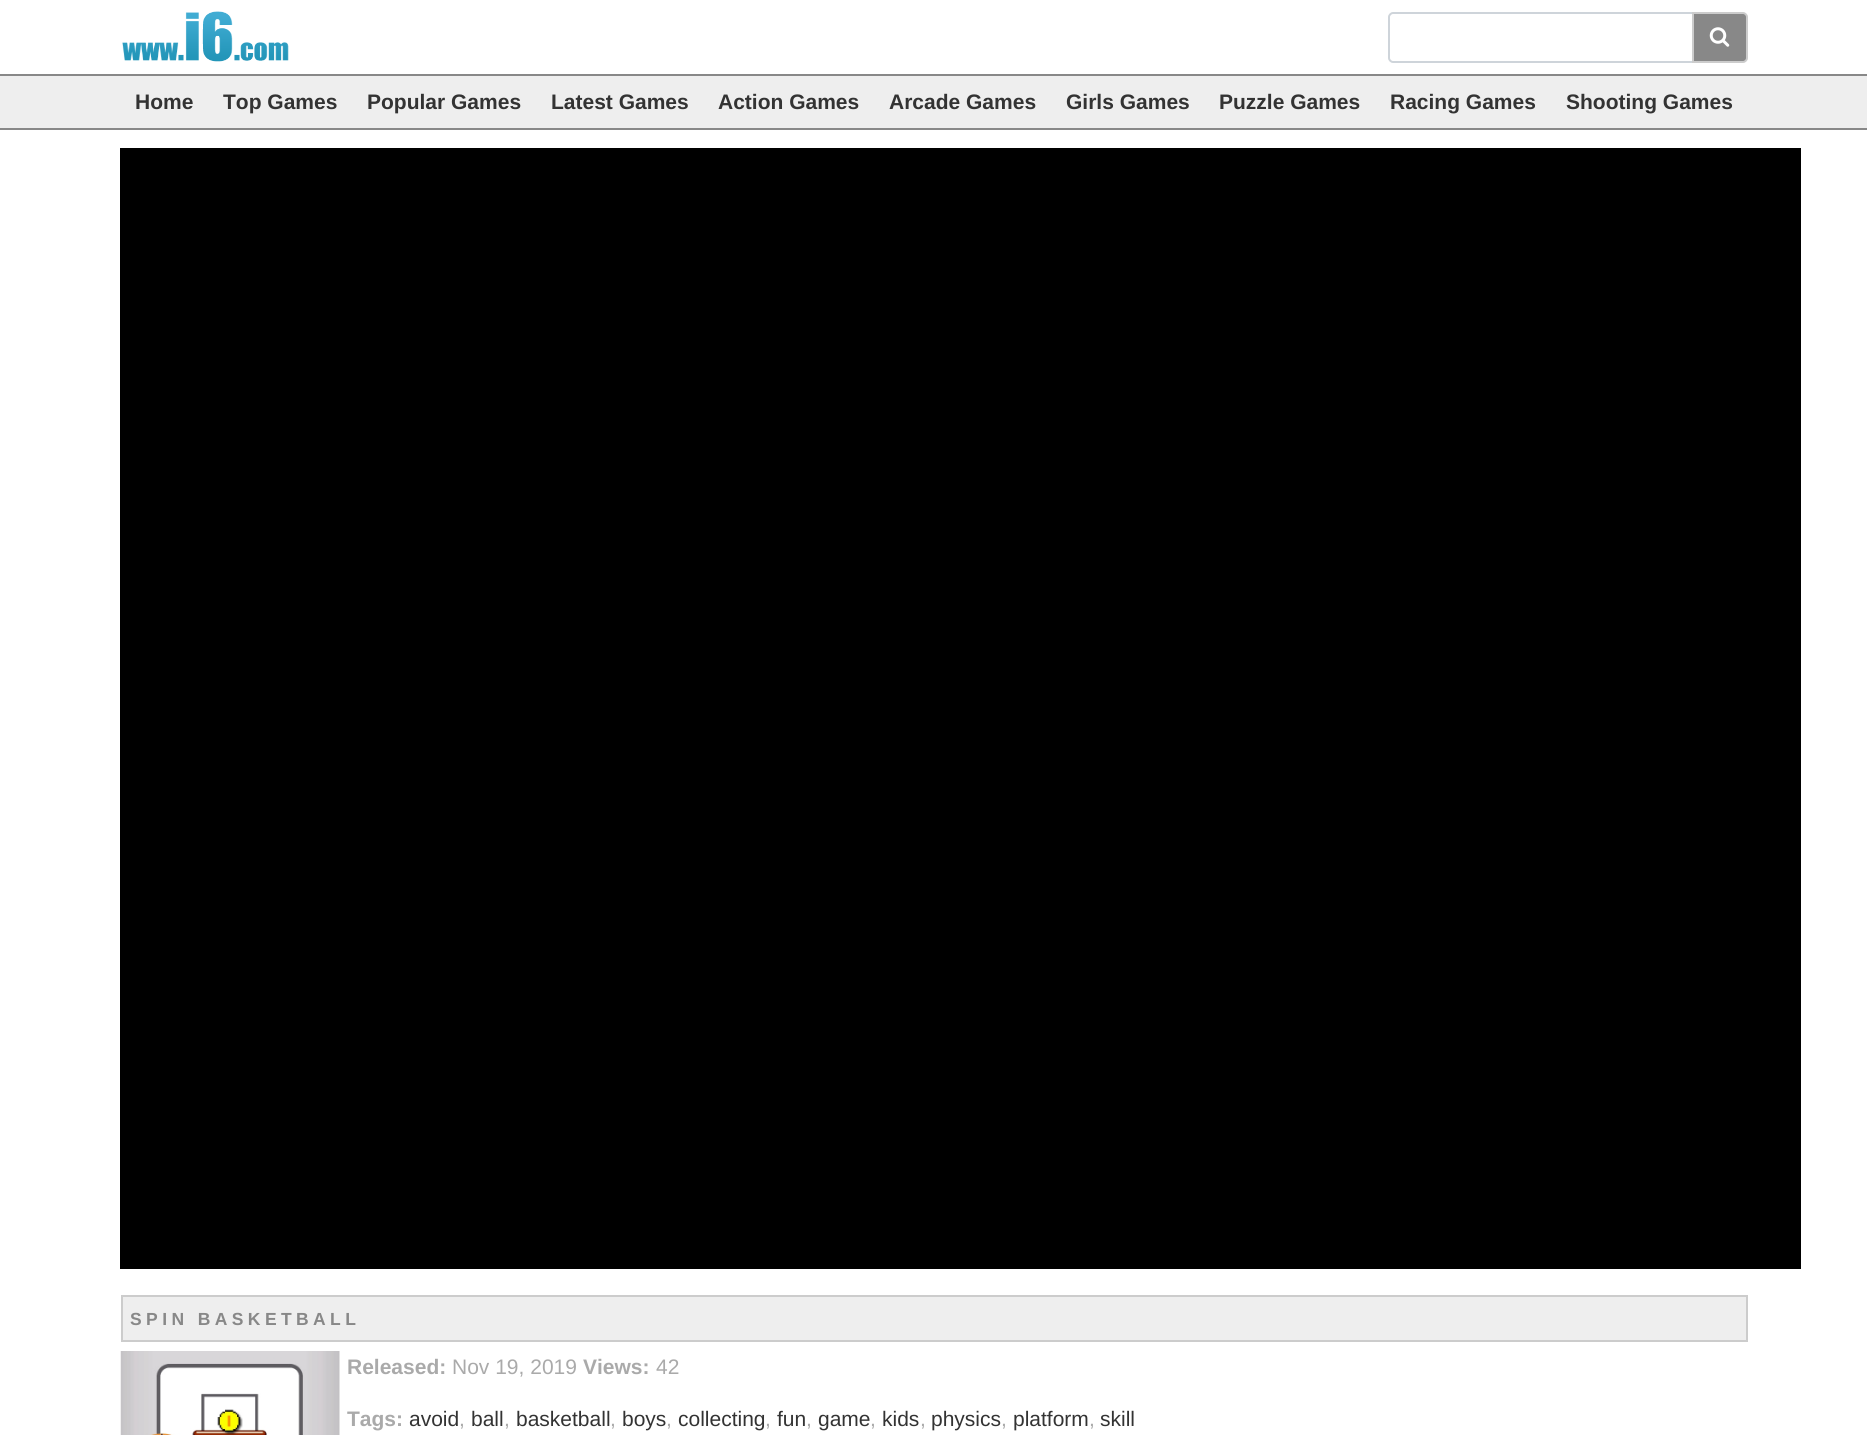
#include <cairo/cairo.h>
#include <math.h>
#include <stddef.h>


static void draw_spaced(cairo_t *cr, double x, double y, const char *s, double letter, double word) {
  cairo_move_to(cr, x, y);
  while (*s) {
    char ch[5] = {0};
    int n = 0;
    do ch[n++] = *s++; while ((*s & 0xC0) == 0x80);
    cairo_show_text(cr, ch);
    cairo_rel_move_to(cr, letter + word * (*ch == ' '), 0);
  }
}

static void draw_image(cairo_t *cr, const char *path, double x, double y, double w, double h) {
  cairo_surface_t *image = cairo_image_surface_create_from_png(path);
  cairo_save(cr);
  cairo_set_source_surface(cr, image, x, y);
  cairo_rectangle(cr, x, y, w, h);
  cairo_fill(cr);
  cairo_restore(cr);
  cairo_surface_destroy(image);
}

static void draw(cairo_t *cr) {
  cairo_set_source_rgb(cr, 1, 1, 1);
  cairo_paint(cr);
  draw_image(cr, "images/1.png", 122, 11, 167, 51);
  cairo_new_path(cr);
  cairo_move_to(cr, 1393, 13);
  cairo_line_to(cr, 1693, 13);
  cairo_line_to(cr, 1693, 62);
  cairo_line_to(cr, 1393, 62);
  cairo_curve_to(cr, 1391, 62, 1389, 60, 1389, 58);
  cairo_line_to(cr, 1389, 17);
  cairo_curve_to(cr, 1389, 15, 1391, 13, 1393, 13);
  cairo_close_path(cr);
  cairo_set_source_rgb(cr, 206 / 255.0, 212 / 255.0, 218 / 255.0);
  cairo_stroke(cr);
  cairo_set_source_rgb(cr, 136 / 255.0, 136 / 255.0, 136 / 255.0);
  cairo_new_path(cr);
  cairo_move_to(cr, 1693, 13);
  cairo_line_to(cr, 1743, 13);
  cairo_curve_to(cr, 1745, 13, 1747, 15, 1747, 17);
  cairo_line_to(cr, 1747, 58);
  cairo_curve_to(cr, 1747, 60, 1745, 62, 1743, 62);
  cairo_line_to(cr, 1693, 62);
  cairo_close_path(cr);
  cairo_fill_preserve(cr);
  cairo_set_source_rgb(cr, 204 / 255.0, 204 / 255.0, 204 / 255.0);
  cairo_stroke(cr);
  draw_image(cr, "images/2.png", 1709, 27, 21, 20);
  cairo_set_source_rgb(cr, 238 / 255.0, 238 / 255.0, 238 / 255.0);
  cairo_rectangle(cr, 0, 76, 1867, 52);
  cairo_fill(cr);
  cairo_set_source_rgb(cr, 136 / 255.0, 136 / 255.0, 136 / 255.0);
  cairo_rectangle(cr, 0, 74, 1867, 2);
  cairo_fill(cr);
  cairo_rectangle(cr, 0, 128, 1867, 2);
  cairo_fill(cr);
  cairo_set_source_rgb(cr, 0, 0, 0);
  cairo_rectangle(cr, 120, 148, 1681, 1121);
  cairo_fill(cr);
  cairo_set_source_rgb(cr, 238 / 255.0, 238 / 255.0, 238 / 255.0);
  cairo_rectangle(cr, 122, 1296, 1625, 45);
  cairo_fill_preserve(cr);
  cairo_set_source_rgb(cr, 204 / 255.0, 204 / 255.0, 204 / 255.0);
  cairo_stroke(cr);
  draw_image(cr, "images/3.png", 120, 1351, 220, 84);
  cairo_select_font_face(cr, "Liberation Sans", CAIRO_FONT_SLANT_NORMAL, CAIRO_FONT_WEIGHT_BOLD);
  cairo_set_font_size(cr, 21);
  cairo_set_source_rgb(cr, 51 / 255.0, 51 / 255.0, 51 / 255.0);
  cairo_move_to(cr, 135, 109);
  cairo_show_text(cr, "Home");
  cairo_move_to(cr, 223, 109);
  cairo_show_text(cr, "Top Games");
  cairo_move_to(cr, 367, 109);
  cairo_show_text(cr, "Popular Games");
  cairo_move_to(cr, 551, 109);
  cairo_show_text(cr, "Latest Games");
  cairo_move_to(cr, 718, 109);
  cairo_show_text(cr, "Action Games");
  cairo_move_to(cr, 889, 109);
  cairo_show_text(cr, "Arcade Games");
  cairo_move_to(cr, 1066, 109);
  cairo_show_text(cr, "Girls Games");
  cairo_move_to(cr, 1219, 109);
  cairo_show_text(cr, "Puzzle Games");
  cairo_move_to(cr, 1390, 109);
  cairo_show_text(cr, "Racing Games");
  cairo_move_to(cr, 1566, 109);
  cairo_show_text(cr, "Shooting Games");
  cairo_set_font_size(cr, 17.5);
  cairo_set_source_rgb(cr, 136 / 255.0, 136 / 255.0, 136 / 255.0);
  draw_spaced(cr, 130, 1325, "SPIN BASKETBALL", 4.4, 0);
  cairo_set_font_size(cr, 21);
  cairo_set_source_rgb(cr, 170 / 255.0, 170 / 255.0, 170 / 255.0);
  cairo_move_to(cr, 347, 1374);
  cairo_show_text(cr, "Released:");
  cairo_select_font_face(cr, "Liberation Sans", CAIRO_FONT_SLANT_NORMAL, CAIRO_FONT_WEIGHT_NORMAL);
  cairo_move_to(cr, 452, 1374);
  cairo_show_text(cr, "Nov 19, 2019");
  cairo_select_font_face(cr, "Liberation Sans", CAIRO_FONT_SLANT_NORMAL, CAIRO_FONT_WEIGHT_BOLD);
  cairo_move_to(cr, 583, 1374);
  cairo_show_text(cr, "Views:");
  cairo_select_font_face(cr, "Liberation Sans", CAIRO_FONT_SLANT_NORMAL, CAIRO_FONT_WEIGHT_NORMAL);
  cairo_move_to(cr, 656, 1374);
  cairo_show_text(cr, "42");
  cairo_select_font_face(cr, "Liberation Sans", CAIRO_FONT_SLANT_NORMAL, CAIRO_FONT_WEIGHT_BOLD);
  cairo_move_to(cr, 347, 1426);
  cairo_show_text(cr, "Tags:");
  cairo_select_font_face(cr, "Liberation Sans", CAIRO_FONT_SLANT_NORMAL, CAIRO_FONT_WEIGHT_NORMAL);
  cairo_set_source_rgb(cr, 51 / 255.0, 51 / 255.0, 51 / 255.0);
  cairo_move_to(cr, 409, 1426);
  cairo_show_text(cr, "avoid");
  cairo_set_source_rgb(cr, 170 / 255.0, 170 / 255.0, 170 / 255.0);
  cairo_move_to(cr, 459, 1426);
  cairo_show_text(cr, ",");
  cairo_set_source_rgb(cr, 51 / 255.0, 51 / 255.0, 51 / 255.0);
  cairo_move_to(cr, 471, 1426);
  cairo_show_text(cr, "ball");
  cairo_set_source_rgb(cr, 170 / 255.0, 170 / 255.0, 170 / 255.0);
  cairo_move_to(cr, 504, 1426);
  cairo_show_text(cr, ",");
  cairo_set_source_rgb(cr, 51 / 255.0, 51 / 255.0, 51 / 255.0);
  cairo_move_to(cr, 516, 1426);
  cairo_show_text(cr, "basketball");
  cairo_set_source_rgb(cr, 170 / 255.0, 170 / 255.0, 170 / 255.0);
  cairo_move_to(cr, 610, 1426);
  cairo_show_text(cr, ",");
  cairo_set_source_rgb(cr, 51 / 255.0, 51 / 255.0, 51 / 255.0);
  cairo_move_to(cr, 622, 1426);
  cairo_show_text(cr, "boys");
  cairo_set_source_rgb(cr, 170 / 255.0, 170 / 255.0, 170 / 255.0);
  cairo_move_to(cr, 666, 1426);
  cairo_show_text(cr, ",");
  cairo_set_source_rgb(cr, 51 / 255.0, 51 / 255.0, 51 / 255.0);
  cairo_move_to(cr, 678, 1426);
  cairo_show_text(cr, "collecting");
  cairo_set_source_rgb(cr, 170 / 255.0, 170 / 255.0, 170 / 255.0);
  cairo_move_to(cr, 765, 1426);
  cairo_show_text(cr, ",");
  cairo_set_source_rgb(cr, 51 / 255.0, 51 / 255.0, 51 / 255.0);
  cairo_move_to(cr, 777, 1426);
  cairo_show_text(cr, "fun");
  cairo_set_source_rgb(cr, 170 / 255.0, 170 / 255.0, 170 / 255.0);
  cairo_move_to(cr, 806, 1426);
  cairo_show_text(cr, ",");
  cairo_set_source_rgb(cr, 51 / 255.0, 51 / 255.0, 51 / 255.0);
  cairo_move_to(cr, 818, 1426);
  cairo_show_text(cr, "game");
  cairo_set_source_rgb(cr, 170 / 255.0, 170 / 255.0, 170 / 255.0);
  cairo_move_to(cr, 870, 1426);
  cairo_show_text(cr, ",");
  cairo_set_source_rgb(cr, 51 / 255.0, 51 / 255.0, 51 / 255.0);
  cairo_move_to(cr, 882, 1426);
  cairo_show_text(cr, "kids");
  cairo_set_source_rgb(cr, 170 / 255.0, 170 / 255.0, 170 / 255.0);
  cairo_move_to(cr, 920, 1426);
  cairo_show_text(cr, ",");
  cairo_set_source_rgb(cr, 51 / 255.0, 51 / 255.0, 51 / 255.0);
  cairo_move_to(cr, 931, 1426);
  cairo_show_text(cr, "physics");
  cairo_set_source_rgb(cr, 170 / 255.0, 170 / 255.0, 170 / 255.0);
  cairo_move_to(cr, 1001, 1426);
  cairo_show_text(cr, ",");
  cairo_set_source_rgb(cr, 51 / 255.0, 51 / 255.0, 51 / 255.0);
  cairo_move_to(cr, 1013, 1426);
  cairo_show_text(cr, "platform");
  cairo_set_source_rgb(cr, 170 / 255.0, 170 / 255.0, 170 / 255.0);
  cairo_move_to(cr, 1089, 1426);
  cairo_show_text(cr, ",");
  cairo_set_source_rgb(cr, 51 / 255.0, 51 / 255.0, 51 / 255.0);
  cairo_move_to(cr, 1100, 1426);
  cairo_show_text(cr, "skill");
}

int main(void) {
  cairo_surface_t *surface = cairo_image_surface_create(CAIRO_FORMAT_RGB24, 1867, 1435);
  cairo_t *cr = cairo_create(surface);
  cairo_font_options_t *options = cairo_font_options_create();
  cairo_font_options_set_hint_metrics(options, CAIRO_HINT_METRICS_OFF);
  cairo_font_options_set_hint_style(options, CAIRO_HINT_STYLE_NONE);
  cairo_set_font_options(cr, options);
  cairo_set_miter_limit(cr, 4);
  draw(cr);
  cairo_surface_write_to_png(surface, "out.png");
  cairo_font_options_destroy(options);
  cairo_destroy(cr);
  cairo_surface_destroy(surface);
  return 0;
}
